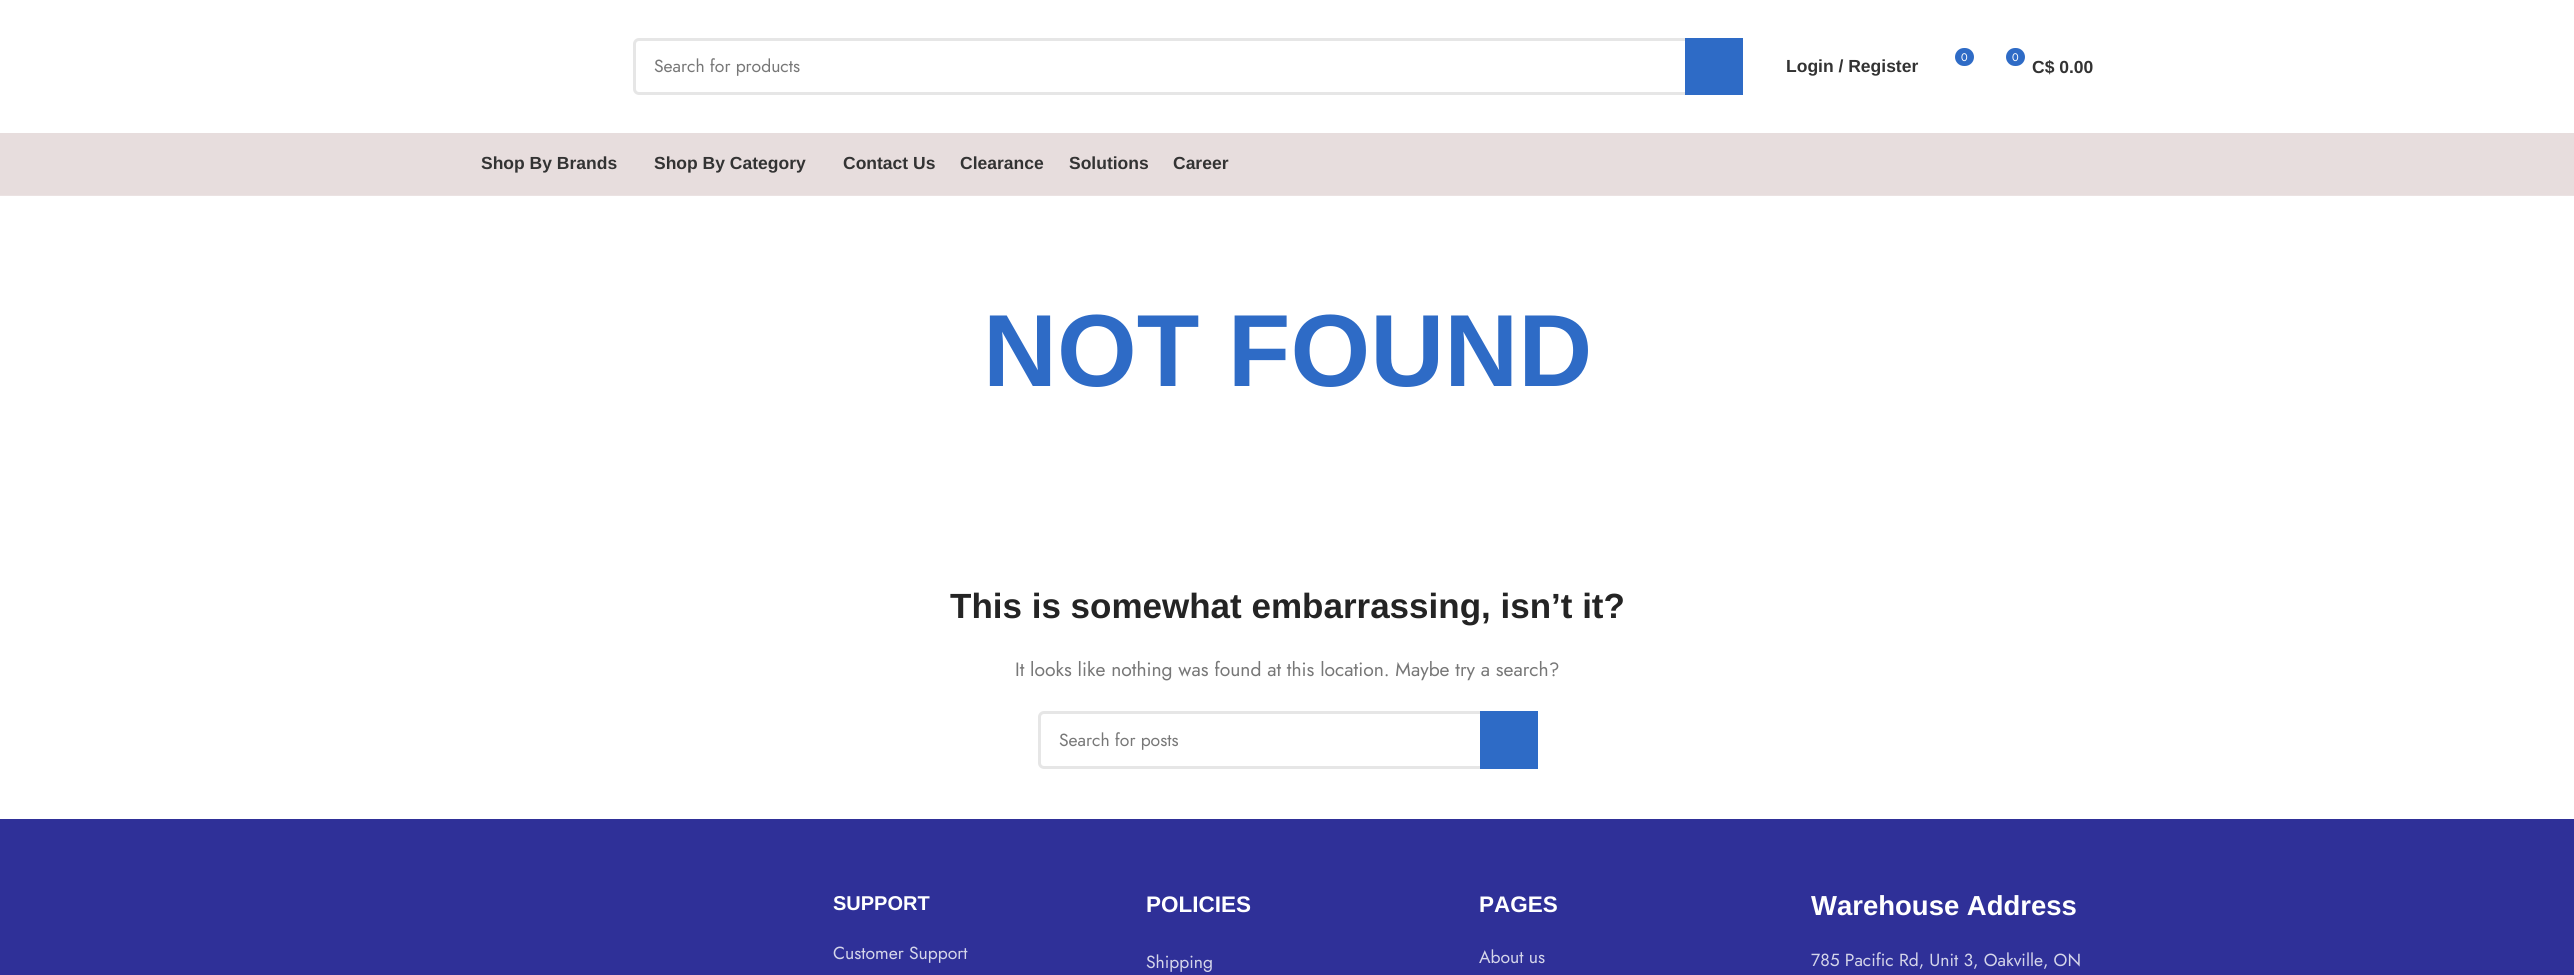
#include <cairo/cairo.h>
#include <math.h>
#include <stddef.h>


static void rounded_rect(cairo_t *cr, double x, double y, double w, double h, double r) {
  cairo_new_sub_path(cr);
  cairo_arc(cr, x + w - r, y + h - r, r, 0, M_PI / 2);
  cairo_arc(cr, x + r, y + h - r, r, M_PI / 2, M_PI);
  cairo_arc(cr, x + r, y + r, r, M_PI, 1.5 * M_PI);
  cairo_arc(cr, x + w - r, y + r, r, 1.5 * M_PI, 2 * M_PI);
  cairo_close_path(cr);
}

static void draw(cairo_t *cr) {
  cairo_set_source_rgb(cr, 1, 1, 1);
  cairo_paint(cr);
  rounded_rect(cr, 634.5, 39.5, 1107, 54, 4.5);
  cairo_set_source_rgb(cr, 230 / 255.0, 230 / 255.0, 230 / 255.0);
  cairo_set_line_width(cr, 3);
  cairo_stroke(cr);
  cairo_set_source_rgb(cr, 46 / 255.0, 107 / 255.0, 198 / 255.0);
  cairo_rectangle(cr, 1685, 38, 58, 57);
  cairo_fill(cr);
  rounded_rect(cr, 1955, 48, 19, 18, 9);
  cairo_fill(cr);
  rounded_rect(cr, 2006, 48, 19, 18, 9);
  cairo_fill(cr);
  cairo_set_source_rgb(cr, 231 / 255.0, 221 / 255.0, 221 / 255.0);
  cairo_rectangle(cr, 0, 133, 2574, 62);
  cairo_fill(cr);
  cairo_set_source_rgb(cr, 235 / 255.0, 226 / 255.0, 226 / 255.0);
  cairo_rectangle(cr, 0, 195, 2574, 1);
  cairo_fill(cr);
  rounded_rect(cr, 1039.5, 712.5, 497, 55, 4.5);
  cairo_set_source_rgb(cr, 230 / 255.0, 230 / 255.0, 230 / 255.0);
  cairo_stroke(cr);
  cairo_set_source_rgb(cr, 46 / 255.0, 107 / 255.0, 198 / 255.0);
  cairo_rectangle(cr, 1480, 711, 58, 58);
  cairo_fill(cr);
  cairo_set_source_rgb(cr, 47 / 255.0, 48 / 255.0, 152 / 255.0);
  cairo_rectangle(cr, 0, 819, 2574, 156);
  cairo_fill(cr);
  cairo_select_font_face(cr, "Jost", CAIRO_FONT_SLANT_NORMAL, CAIRO_FONT_WEIGHT_NORMAL);
  cairo_set_font_size(cr, 17.5);
  cairo_set_source_rgb(cr, 119 / 255.0, 119 / 255.0, 119 / 255.0);
  cairo_move_to(cr, 654, 72);
  cairo_show_text(cr, "Search for products");
  cairo_select_font_face(cr, "Liberation Sans", CAIRO_FONT_SLANT_NORMAL, CAIRO_FONT_WEIGHT_BOLD);
  cairo_set_source_rgb(cr, 51 / 255.0, 51 / 255.0, 51 / 255.0);
  cairo_move_to(cr, 1786, 72);
  cairo_show_text(cr, "Login / Register");
  cairo_select_font_face(cr, "Jost", CAIRO_FONT_SLANT_NORMAL, CAIRO_FONT_WEIGHT_NORMAL);
  cairo_set_font_size(cr, 11);
  cairo_set_source_rgb(cr, 1, 1, 1);
  cairo_move_to(cr, 1961, 61);
  cairo_show_text(cr, "0");
  cairo_move_to(cr, 2012, 61);
  cairo_show_text(cr, "0");
  cairo_select_font_face(cr, "Liberation Sans", CAIRO_FONT_SLANT_NORMAL, CAIRO_FONT_WEIGHT_BOLD);
  cairo_set_font_size(cr, 17.5);
  cairo_set_source_rgb(cr, 51 / 255.0, 51 / 255.0, 51 / 255.0);
  cairo_move_to(cr, 2032, 73);
  cairo_show_text(cr, "C$ 0.00");
  cairo_move_to(cr, 481, 169);
  cairo_show_text(cr, "Shop By Brands");
  cairo_move_to(cr, 654, 169);
  cairo_show_text(cr, "Shop By Category");
  cairo_move_to(cr, 843, 169);
  cairo_show_text(cr, "Contact Us");
  cairo_move_to(cr, 960, 169);
  cairo_show_text(cr, "Clearance");
  cairo_move_to(cr, 1069, 169);
  cairo_show_text(cr, "Solutions");
  cairo_move_to(cr, 1173, 169);
  cairo_show_text(cr, "Career");
  cairo_set_font_size(cr, 102.5);
  cairo_set_source_rgb(cr, 46 / 255.0, 107 / 255.0, 198 / 255.0);
  cairo_move_to(cr, 983, 386);
  cairo_show_text(cr, "NOT FOUND");
  cairo_set_font_size(cr, 35);
  cairo_set_source_rgb(cr, 36 / 255.0, 36 / 255.0, 36 / 255.0);
  cairo_move_to(cr, 950, 618);
  cairo_show_text(cr, "This is somewhat embarrassing, isn’t it?");
  cairo_select_font_face(cr, "Jost", CAIRO_FONT_SLANT_NORMAL, CAIRO_FONT_WEIGHT_NORMAL);
  cairo_set_font_size(cr, 19.25);
  cairo_set_source_rgb(cr, 119 / 255.0, 119 / 255.0, 119 / 255.0);
  cairo_move_to(cr, 1015, 676);
  cairo_show_text(cr, "It looks like nothing was found at this location. Maybe try a search?");
  cairo_set_font_size(cr, 17.5);
  cairo_move_to(cr, 1059, 746);
  cairo_show_text(cr, "Search for posts");
  cairo_select_font_face(cr, "Liberation Sans", CAIRO_FONT_SLANT_NORMAL, CAIRO_FONT_WEIGHT_BOLD);
  cairo_set_font_size(cr, 20);
  cairo_set_source_rgb(cr, 1, 1, 1);
  cairo_move_to(cr, 833, 910);
  cairo_show_text(cr, "SUPPORT");
  cairo_select_font_face(cr, "Jost", CAIRO_FONT_SLANT_NORMAL, CAIRO_FONT_WEIGHT_NORMAL);
  cairo_set_font_size(cr, 17.5);
  cairo_set_source_rgb(cr, 213 / 255.0, 214 / 255.0, 234 / 255.0);
  cairo_move_to(cr, 833, 959);
  cairo_show_text(cr, "Customer Support");
  cairo_select_font_face(cr, "Liberation Sans", CAIRO_FONT_SLANT_NORMAL, CAIRO_FONT_WEIGHT_BOLD);
  cairo_set_font_size(cr, 22.5);
  cairo_set_source_rgb(cr, 1, 1, 1);
  cairo_move_to(cr, 1146, 912);
  cairo_show_text(cr, "POLICIES");
  cairo_select_font_face(cr, "Jost", CAIRO_FONT_SLANT_NORMAL, CAIRO_FONT_WEIGHT_NORMAL);
  cairo_set_font_size(cr, 17.5);
  cairo_set_source_rgb(cr, 213 / 255.0, 214 / 255.0, 234 / 255.0);
  cairo_move_to(cr, 1146, 968);
  cairo_show_text(cr, "Shipping");
  cairo_select_font_face(cr, "Liberation Sans", CAIRO_FONT_SLANT_NORMAL, CAIRO_FONT_WEIGHT_BOLD);
  cairo_set_font_size(cr, 22.5);
  cairo_set_source_rgb(cr, 1, 1, 1);
  cairo_move_to(cr, 1479, 912);
  cairo_show_text(cr, "PAGES");
  cairo_select_font_face(cr, "Jost", CAIRO_FONT_SLANT_NORMAL, CAIRO_FONT_WEIGHT_NORMAL);
  cairo_set_font_size(cr, 17.5);
  cairo_set_source_rgb(cr, 213 / 255.0, 214 / 255.0, 234 / 255.0);
  cairo_move_to(cr, 1479, 963);
  cairo_show_text(cr, "About us");
  cairo_select_font_face(cr, "Liberation Sans", CAIRO_FONT_SLANT_NORMAL, CAIRO_FONT_WEIGHT_BOLD);
  cairo_set_font_size(cr, 27.5);
  cairo_set_source_rgb(cr, 1, 1, 1);
  cairo_move_to(cr, 1811, 915);
  cairo_show_text(cr, "Warehouse Address");
  cairo_select_font_face(cr, "Jost", CAIRO_FONT_SLANT_NORMAL, CAIRO_FONT_WEIGHT_NORMAL);
  cairo_set_font_size(cr, 17.5);
  cairo_set_source_rgb(cr, 213 / 255.0, 214 / 255.0, 234 / 255.0);
  cairo_move_to(cr, 1811, 966);
  cairo_show_text(cr, "785 Pacific Rd, Unit 3, Oakville, ON");
}

int main(void) {
  cairo_surface_t *surface = cairo_image_surface_create(CAIRO_FORMAT_RGB24, 2574, 975);
  cairo_t *cr = cairo_create(surface);
  cairo_font_options_t *options = cairo_font_options_create();
  cairo_font_options_set_hint_metrics(options, CAIRO_HINT_METRICS_OFF);
  cairo_font_options_set_hint_style(options, CAIRO_HINT_STYLE_NONE);
  cairo_set_font_options(cr, options);
  cairo_set_miter_limit(cr, 4);
  draw(cr);
  cairo_surface_write_to_png(surface, "out.png");
  cairo_font_options_destroy(options);
  cairo_destroy(cr);
  cairo_surface_destroy(surface);
  return 0;
}
